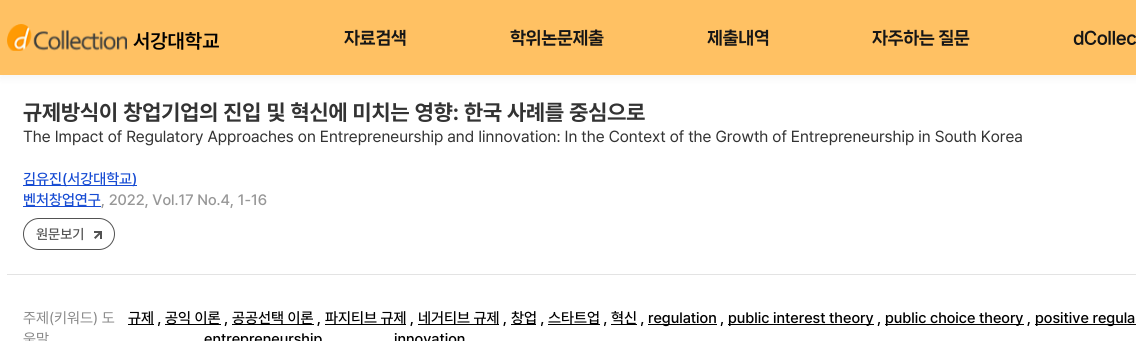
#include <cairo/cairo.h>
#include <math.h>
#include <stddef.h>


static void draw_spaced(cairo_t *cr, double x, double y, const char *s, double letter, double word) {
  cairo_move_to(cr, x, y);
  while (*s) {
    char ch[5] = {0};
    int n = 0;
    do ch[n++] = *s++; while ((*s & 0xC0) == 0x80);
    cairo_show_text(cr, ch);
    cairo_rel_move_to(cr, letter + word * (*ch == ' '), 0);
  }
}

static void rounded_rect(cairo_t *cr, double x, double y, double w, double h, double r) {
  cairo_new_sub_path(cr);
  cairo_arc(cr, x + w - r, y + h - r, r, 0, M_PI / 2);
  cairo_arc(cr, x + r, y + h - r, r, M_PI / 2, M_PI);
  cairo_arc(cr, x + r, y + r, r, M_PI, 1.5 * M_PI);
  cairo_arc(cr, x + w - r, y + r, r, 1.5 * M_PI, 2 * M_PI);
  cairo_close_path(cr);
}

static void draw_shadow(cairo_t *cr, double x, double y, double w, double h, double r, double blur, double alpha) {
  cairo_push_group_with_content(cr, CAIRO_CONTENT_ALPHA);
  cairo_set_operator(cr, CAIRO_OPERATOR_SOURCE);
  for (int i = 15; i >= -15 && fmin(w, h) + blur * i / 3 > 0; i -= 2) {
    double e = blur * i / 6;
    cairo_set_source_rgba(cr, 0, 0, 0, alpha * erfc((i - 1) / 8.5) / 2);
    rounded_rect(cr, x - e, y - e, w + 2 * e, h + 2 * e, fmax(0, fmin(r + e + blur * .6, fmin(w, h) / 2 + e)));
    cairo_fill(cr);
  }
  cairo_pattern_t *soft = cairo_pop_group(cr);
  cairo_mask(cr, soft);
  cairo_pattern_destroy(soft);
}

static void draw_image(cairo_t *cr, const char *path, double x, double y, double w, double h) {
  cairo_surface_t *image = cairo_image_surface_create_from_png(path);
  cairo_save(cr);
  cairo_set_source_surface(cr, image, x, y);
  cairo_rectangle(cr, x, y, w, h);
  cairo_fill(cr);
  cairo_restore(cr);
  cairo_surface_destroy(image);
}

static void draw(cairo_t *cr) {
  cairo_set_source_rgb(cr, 1, 1, 1);
  cairo_paint(cr);
  cairo_set_source_rgb(cr, 0, 0, 0);
  draw_shadow(cr, 0, 4, 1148, 75, 0, 4, 0.04);
  cairo_set_source_rgb(cr, 1, 193 / 255.0, 99 / 255.0);
  cairo_rectangle(cr, 0, 0, 1136, 75);
  cairo_fill(cr);
  draw_image(cr, "images/1.png", 7, 24, 120, 27);
  cairo_set_source_rgb(cr, 227 / 255.0, 227 / 255.0, 227 / 255.0);
  cairo_rectangle(cr, 7, 274, 1129, 1);
  cairo_fill(cr);
  cairo_set_source_rgb(cr, 22 / 255.0, 75 / 255.0, 211 / 255.0);
  cairo_rectangle(cr, 23, 185, 114, 1);
  cairo_fill(cr);
  cairo_rectangle(cr, 23, 206, 78, 1);
  cairo_fill(cr);
  draw_image(cr, "images/2.png", 94, 231, 8, 8);
  rounded_rect(cr, 23.5, 218.5, 91, 31, 15.5);
  cairo_set_source_rgb(cr, 82 / 255.0, 82 / 255.0, 82 / 255.0);
  cairo_set_line_width(cr, 1);
  cairo_stroke(cr);
  cairo_set_source_rgb(cr, 0, 0, 0);
  cairo_rectangle(cr, 128, 324, 26, 1);
  cairo_fill(cr);
  cairo_rectangle(cr, 165, 324, 56, 1);
  cairo_fill(cr);
  cairo_rectangle(cr, 232, 324, 82, 1);
  cairo_fill(cr);
  cairo_rectangle(cr, 325, 324, 81, 1);
  cairo_fill(cr);
  cairo_rectangle(cr, 418, 324, 81, 1);
  cairo_fill(cr);
  cairo_rectangle(cr, 511, 324, 25, 1);
  cairo_fill(cr);
  cairo_rectangle(cr, 548, 324, 52, 1);
  cairo_fill(cr);
  cairo_rectangle(cr, 611, 324, 26, 1);
  cairo_fill(cr);
  cairo_rectangle(cr, 648, 324, 69, 1);
  cairo_fill(cr);
  cairo_rectangle(cr, 728, 324, 146, 1);
  cairo_fill(cr);
  cairo_rectangle(cr, 885, 324, 139, 1);
  cairo_fill(cr);
  cairo_rectangle(cr, 1035, 324, 101, 1);
  cairo_fill(cr);
  cairo_select_font_face(cr, "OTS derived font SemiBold", CAIRO_FONT_SLANT_NORMAL, CAIRO_FONT_WEIGHT_NORMAL);
  cairo_set_font_size(cr, 20);
  cairo_move_to(cr, 133, 48);
  cairo_show_text(cr, "서강대학교");
  cairo_select_font_face(cr, "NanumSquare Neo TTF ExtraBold", CAIRO_FONT_SLANT_NORMAL, CAIRO_FONT_WEIGHT_NORMAL);
  cairo_set_font_size(cr, 17);
  cairo_set_source_rgb(cr, 22 / 255.0, 22 / 255.0, 22 / 255.0);
  draw_spaced(cr, 344, 43, "자료검색", -0.5, 0);
  draw_spaced(cr, 510, 43, "학위논문제출", -0.5, 0);
  draw_spaced(cr, 707, 43, "제출내역", -0.5, 0);
  draw_spaced(cr, 872, 43, "자주하는 질문", -0.5, 0);
  draw_spaced(cr, 1073, 43, "dCollec", -0.5, 0);
  cairo_select_font_face(cr, "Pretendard", CAIRO_FONT_SLANT_NORMAL, CAIRO_FONT_WEIGHT_BOLD);
  cairo_set_font_size(cr, 22);
  cairo_set_source_rgb(cr, 51 / 255.0, 51 / 255.0, 51 / 255.0);
  cairo_move_to(cr, 23, 120);
  cairo_show_text(cr, "규제방식이 창업기업의 진입 및 혁신에 미치는 영향: 한국 사례를 중심으로");
  cairo_select_font_face(cr, "OTS derived font", CAIRO_FONT_SLANT_NORMAL, CAIRO_FONT_WEIGHT_NORMAL);
  cairo_set_font_size(cr, 16);
  cairo_move_to(cr, 23, 142);
  cairo_show_text(cr, "The Impact of Regulatory Approaches on Entrepreneurship and Iinnovation: In the Context of the Growth of Entrepreneurship in South Korea");
  cairo_select_font_face(cr, "OTS derived font Medium", CAIRO_FONT_SLANT_NORMAL, CAIRO_FONT_WEIGHT_NORMAL);
  cairo_set_font_size(cr, 15);
  cairo_set_source_rgb(cr, 22 / 255.0, 75 / 255.0, 211 / 255.0);
  cairo_move_to(cr, 23, 184);
  cairo_show_text(cr, "김유진(서강대학교)");
  cairo_move_to(cr, 23, 205);
  cairo_show_text(cr, "벤처창업연구");
  cairo_set_source_rgb(cr, 151 / 255.0, 151 / 255.0, 151 / 255.0);
  cairo_move_to(cr, 101, 205);
  cairo_show_text(cr, ", 2022, Vol.17 No.4, 1-16");
  cairo_set_font_size(cr, 14);
  cairo_set_source_rgb(cr, 82 / 255.0, 82 / 255.0, 82 / 255.0);
  cairo_move_to(cr, 36, 239);
  cairo_show_text(cr, "원문보기");
  cairo_select_font_face(cr, "OTS derived font", CAIRO_FONT_SLANT_NORMAL, CAIRO_FONT_WEIGHT_NORMAL);
  cairo_set_font_size(cr, 15);
  cairo_set_source_rgb(cr, 136 / 255.0, 136 / 255.0, 136 / 255.0);
  cairo_move_to(cr, 23, 323);
  cairo_show_text(cr, "주제(키워드) 도");
  cairo_move_to(cr, 23, 344);
  cairo_show_text(cr, "움말");
  cairo_select_font_face(cr, "OTS derived font Medium", CAIRO_FONT_SLANT_NORMAL, CAIRO_FONT_WEIGHT_NORMAL);
  cairo_set_source_rgb(cr, 0, 0, 0);
  cairo_move_to(cr, 128, 323);
  cairo_show_text(cr, "규제 ,");
  cairo_move_to(cr, 165, 323);
  cairo_show_text(cr, "공익 이론 ,");
  cairo_move_to(cr, 232, 323);
  cairo_show_text(cr, "공공선택 이론 ,");
  cairo_move_to(cr, 325, 323);
  cairo_show_text(cr, "파지티브 규제 ,");
  cairo_move_to(cr, 418, 323);
  cairo_show_text(cr, "네거티브 규제 ,");
  cairo_move_to(cr, 511, 323);
  cairo_show_text(cr, "창업 ,");
  cairo_move_to(cr, 548, 323);
  cairo_show_text(cr, "스타트업 ,");
  cairo_move_to(cr, 611, 323);
  cairo_show_text(cr, "혁신 ,");
  cairo_move_to(cr, 648, 323);
  cairo_show_text(cr, "regulation ,");
  cairo_move_to(cr, 728, 323);
  cairo_show_text(cr, "public interest theory ,");
  cairo_move_to(cr, 885, 323);
  cairo_show_text(cr, "public choice theory ,");
  cairo_move_to(cr, 1035, 323);
  cairo_show_text(cr, "positive regula");
  cairo_move_to(cr, 204, 344);
  cairo_show_text(cr, "entrepreneurship");
  cairo_move_to(cr, 394, 344);
  cairo_show_text(cr, "innovation");
}

int main(void) {
  cairo_surface_t *surface = cairo_image_surface_create(CAIRO_FORMAT_RGB24, 1136, 341);
  cairo_t *cr = cairo_create(surface);
  cairo_font_options_t *options = cairo_font_options_create();
  cairo_font_options_set_hint_metrics(options, CAIRO_HINT_METRICS_OFF);
  cairo_font_options_set_hint_style(options, CAIRO_HINT_STYLE_NONE);
  cairo_set_font_options(cr, options);
  cairo_set_miter_limit(cr, 4);
  draw(cr);
  cairo_surface_write_to_png(surface, "out.png");
  cairo_font_options_destroy(options);
  cairo_destroy(cr);
  cairo_surface_destroy(surface);
  return 0;
}
